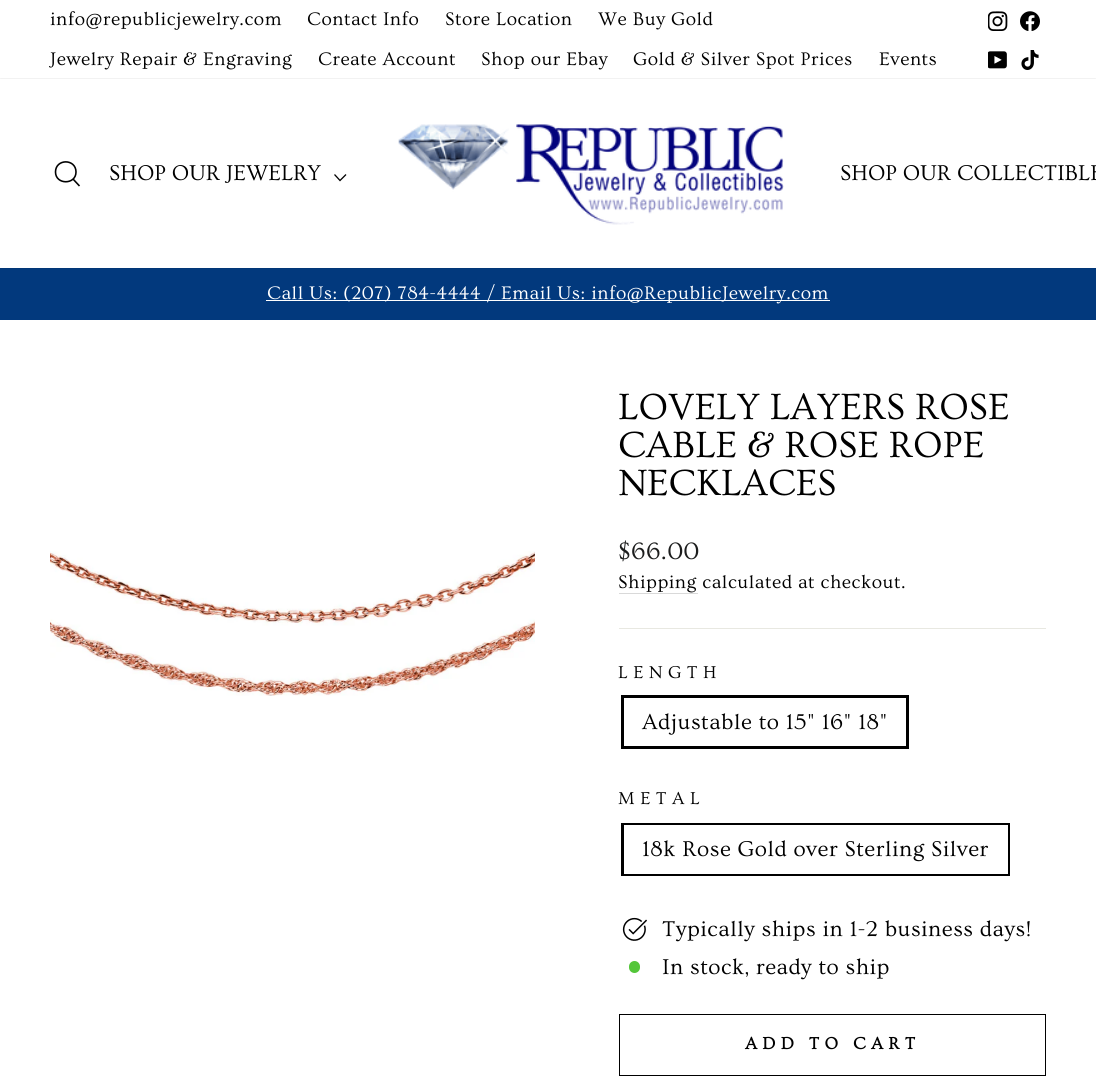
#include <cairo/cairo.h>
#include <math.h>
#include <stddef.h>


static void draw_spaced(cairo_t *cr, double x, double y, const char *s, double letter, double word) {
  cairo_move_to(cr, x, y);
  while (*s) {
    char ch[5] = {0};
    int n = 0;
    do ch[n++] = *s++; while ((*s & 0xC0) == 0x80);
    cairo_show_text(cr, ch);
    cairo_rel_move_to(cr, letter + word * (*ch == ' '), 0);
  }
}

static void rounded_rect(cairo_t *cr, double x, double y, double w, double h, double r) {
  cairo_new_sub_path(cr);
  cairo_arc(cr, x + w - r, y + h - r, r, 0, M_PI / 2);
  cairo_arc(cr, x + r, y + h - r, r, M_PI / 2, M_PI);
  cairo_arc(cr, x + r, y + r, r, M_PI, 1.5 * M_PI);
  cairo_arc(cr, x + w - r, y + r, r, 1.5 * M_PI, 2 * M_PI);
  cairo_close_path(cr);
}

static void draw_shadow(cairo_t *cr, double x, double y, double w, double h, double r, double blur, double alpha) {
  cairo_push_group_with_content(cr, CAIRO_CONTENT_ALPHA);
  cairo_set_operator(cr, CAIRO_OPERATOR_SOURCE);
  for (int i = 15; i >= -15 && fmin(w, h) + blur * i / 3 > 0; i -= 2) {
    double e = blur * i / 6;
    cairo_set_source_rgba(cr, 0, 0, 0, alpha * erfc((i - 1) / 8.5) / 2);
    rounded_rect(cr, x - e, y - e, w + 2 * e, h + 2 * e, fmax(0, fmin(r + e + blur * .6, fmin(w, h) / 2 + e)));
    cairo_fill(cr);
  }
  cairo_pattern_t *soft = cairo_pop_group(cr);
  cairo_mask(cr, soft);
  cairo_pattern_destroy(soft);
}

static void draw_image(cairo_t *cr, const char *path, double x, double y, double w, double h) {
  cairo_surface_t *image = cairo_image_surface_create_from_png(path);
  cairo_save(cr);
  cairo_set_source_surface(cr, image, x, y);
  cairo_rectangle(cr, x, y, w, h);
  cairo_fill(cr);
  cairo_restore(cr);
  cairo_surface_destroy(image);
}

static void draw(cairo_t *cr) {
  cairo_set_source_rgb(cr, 1, 1, 1);
  cairo_paint(cr);
  draw_image(cr, "images/1.png", 988, 11, 20, 20);
  draw_image(cr, "images/2.png", 1020, 11, 20, 20);
  draw_image(cr, "images/3.png", 988, 51, 19, 18);
  draw_image(cr, "images/4.png", 1021, 50, 18, 20);
  cairo_set_source_rgb(cr, 2 / 255.0, 57 / 255.0, 125 / 255.0);
  cairo_rectangle(cr, 0, 268, 1096, 52);
  cairo_fill(cr);
  cairo_set_source_rgb(cr, 0, 0, 0);
  draw_shadow(cr, 0, 79, 1096, 189, 0, 0.5, 0.2);
  cairo_set_source_rgb(cr, 1, 1, 1);
  cairo_rectangle(cr, 0, 79, 1096, 189);
  cairo_fill(cr);
  cairo_new_path(cr);
  cairo_move_to(cr, 76, 172);
  cairo_curve_to(cr, 76, 185, 55.5, 185, 55.5, 172);
  cairo_curve_to(cr, 55.5, 158.5, 76, 158.5, 76, 172);
  cairo_close_path(cr);
  cairo_move_to(cr, 79.5, 186);
  cairo_line_to(cr, 73, 179);
  cairo_set_source_rgb(cr, 0, 0, 0);
  cairo_set_line_width(cr, 1.6);
  cairo_stroke(cr);
  cairo_new_path(cr);
  cairo_move_to(cr, 334.5, 174.5);
  cairo_line_to(cr, 340, 180.5);
  cairo_line_to(cr, 346, 174.5);
  cairo_set_line_width(cr, 1.3);
  cairo_stroke(cr);
  draw_image(cr, "images/5.png", 398, 124, 386, 101);
  cairo_set_source_rgb(cr, 1, 1, 1);
  cairo_rectangle(cr, 266, 300, 564, 1);
  cairo_fill(cr);
  draw_image(cr, "images/6.png", 50, 551, 485, 145);
  cairo_set_source_rgb(cr, 217 / 255.0, 217 / 255.0, 217 / 255.0);
  cairo_rectangle(cr, 619, 593, 79, 1);
  cairo_fill(cr);
  cairo_set_source_rgb(cr, 232 / 255.0, 232 / 255.0, 225 / 255.0);
  cairo_rectangle(cr, 619, 628, 427, 1);
  cairo_fill(cr);
  cairo_rectangle(cr, 622.5, 696.5, 285, 51);
  cairo_set_source_rgb(cr, 0, 0, 0);
  cairo_set_line_width(cr, 3);
  cairo_stroke(cr);
  cairo_rectangle(cr, 622.5, 824.5, 386, 50);
  cairo_stroke(cr);
  cairo_set_source_rgb(cr, 1, 1, 1);
  cairo_rectangle(cr, 624, 825, 384, 49);
  cairo_fill(cr);
  draw_image(cr, "images/7.png", 622, 917, 25, 24);
  cairo_set_source_rgb(cr, 84 / 255.0, 198 / 255.0, 58 / 255.0);
  rounded_rect(cr, 629, 961, 11, 12, 5.5);
  cairo_fill(cr);
  cairo_rectangle(cr, 619.5, 1014.5, 426, 61);
  cairo_set_source_rgb(cr, 0, 0, 0);
  cairo_set_line_width(cr, 1);
  cairo_stroke(cr);
  cairo_select_font_face(cr, "Ovo", CAIRO_FONT_SLANT_NORMAL, CAIRO_FONT_WEIGHT_NORMAL);
  cairo_set_font_size(cr, 19.1);
  draw_spaced(cr, 50, 25, "info@republicjewelry.com", 0.55, 0);
  draw_spaced(cr, 307, 25, "Contact Info", 0.55, 0);
  draw_spaced(cr, 445, 25, "Store Location", 0.55, 0);
  draw_spaced(cr, 598, 25, "We Buy Gold", 0.55, 0);
  draw_spaced(cr, 50, 65, "Jewelry Repair & Engraving", 0.55, 0);
  draw_spaced(cr, 318, 65, "Create Account", 0.55, 0);
  draw_spaced(cr, 481, 65, "Shop our Ebay", 0.55, 0);
  draw_spaced(cr, 633, 65, "Gold & Silver Spot Prices", 0.55, 0);
  draw_spaced(cr, 879, 65, "Events", 0.55, 0);
  cairo_set_font_size(cr, 22.5);
  cairo_move_to(cr, 109, 180);
  cairo_show_text(cr, "SHOP OUR JEWELRY");
  cairo_move_to(cr, 840, 180);
  cairo_show_text(cr, "SHOP OUR COLLECTIBLE");
  cairo_set_font_size(cr, 19.1);
  cairo_set_source_rgb(cr, 1, 1, 1);
  draw_spaced(cr, 267, 299, "Call Us: (207) 784-4444 / Email Us: info@RepublicJewelry.com", 0.55, 0);
  cairo_set_font_size(cr, 38.25);
  cairo_set_source_rgb(cr, 0, 0, 0);
  cairo_move_to(cr, 618, 419);
  cairo_show_text(cr, "LOVELY LAYERS ROSE");
  cairo_move_to(cr, 618, 457);
  cairo_show_text(cr, "CABLE & ROSE ROPE");
  cairo_move_to(cr, 618, 495);
  cairo_show_text(cr, "NECKLACES");
  cairo_set_font_size(cr, 25);
  cairo_set_source_rgb(cr, 28 / 255.0, 29 / 255.0, 29 / 255.0);
  draw_spaced(cr, 618, 559, "$66.00", 0.55, 0);
  cairo_set_font_size(cr, 19.1);
  cairo_set_source_rgb(cr, 0, 0, 0);
  draw_spaced(cr, 618, 588, "Shipping calculated at checkout.", 0.55, 0);
  cairo_set_font_size(cr, 18);
  draw_spaced(cr, 618, 678, "LENGTH", 5.5, 0);
  cairo_set_font_size(cr, 22.5);
  draw_spaced(cr, 642, 729, "Adjustable to 15\" 16\" 18\"", 0.55, 0);
  cairo_set_font_size(cr, 18);
  draw_spaced(cr, 618, 804, "METAL", 5.5, 0);
  cairo_set_font_size(cr, 22.5);
  draw_spaced(cr, 642, 856, "18k Rose Gold over Sterling Silver", 0.55, 0);
  draw_spaced(cr, 662, 936, "Typically ships in 1-2 business days!", 0.55, 0);
  draw_spaced(cr, 662, 974, "In stock, ready to ship", 0.55, 0);
  cairo_select_font_face(cr, "Ovo", CAIRO_FONT_SLANT_NORMAL, CAIRO_FONT_WEIGHT_BOLD);
  cairo_set_font_size(cr, 17.5);
  draw_spaced(cr, 745, 1049, "ADD TO CART", 5.25, 0);
}

int main(void) {
  cairo_surface_t *surface = cairo_image_surface_create(CAIRO_FORMAT_RGB24, 1096, 1076);
  cairo_t *cr = cairo_create(surface);
  cairo_font_options_t *options = cairo_font_options_create();
  cairo_font_options_set_hint_metrics(options, CAIRO_HINT_METRICS_OFF);
  cairo_font_options_set_hint_style(options, CAIRO_HINT_STYLE_NONE);
  cairo_set_font_options(cr, options);
  cairo_set_miter_limit(cr, 4);
  draw(cr);
  cairo_surface_write_to_png(surface, "out.png");
  cairo_font_options_destroy(options);
  cairo_destroy(cr);
  cairo_surface_destroy(surface);
  return 0;
}
